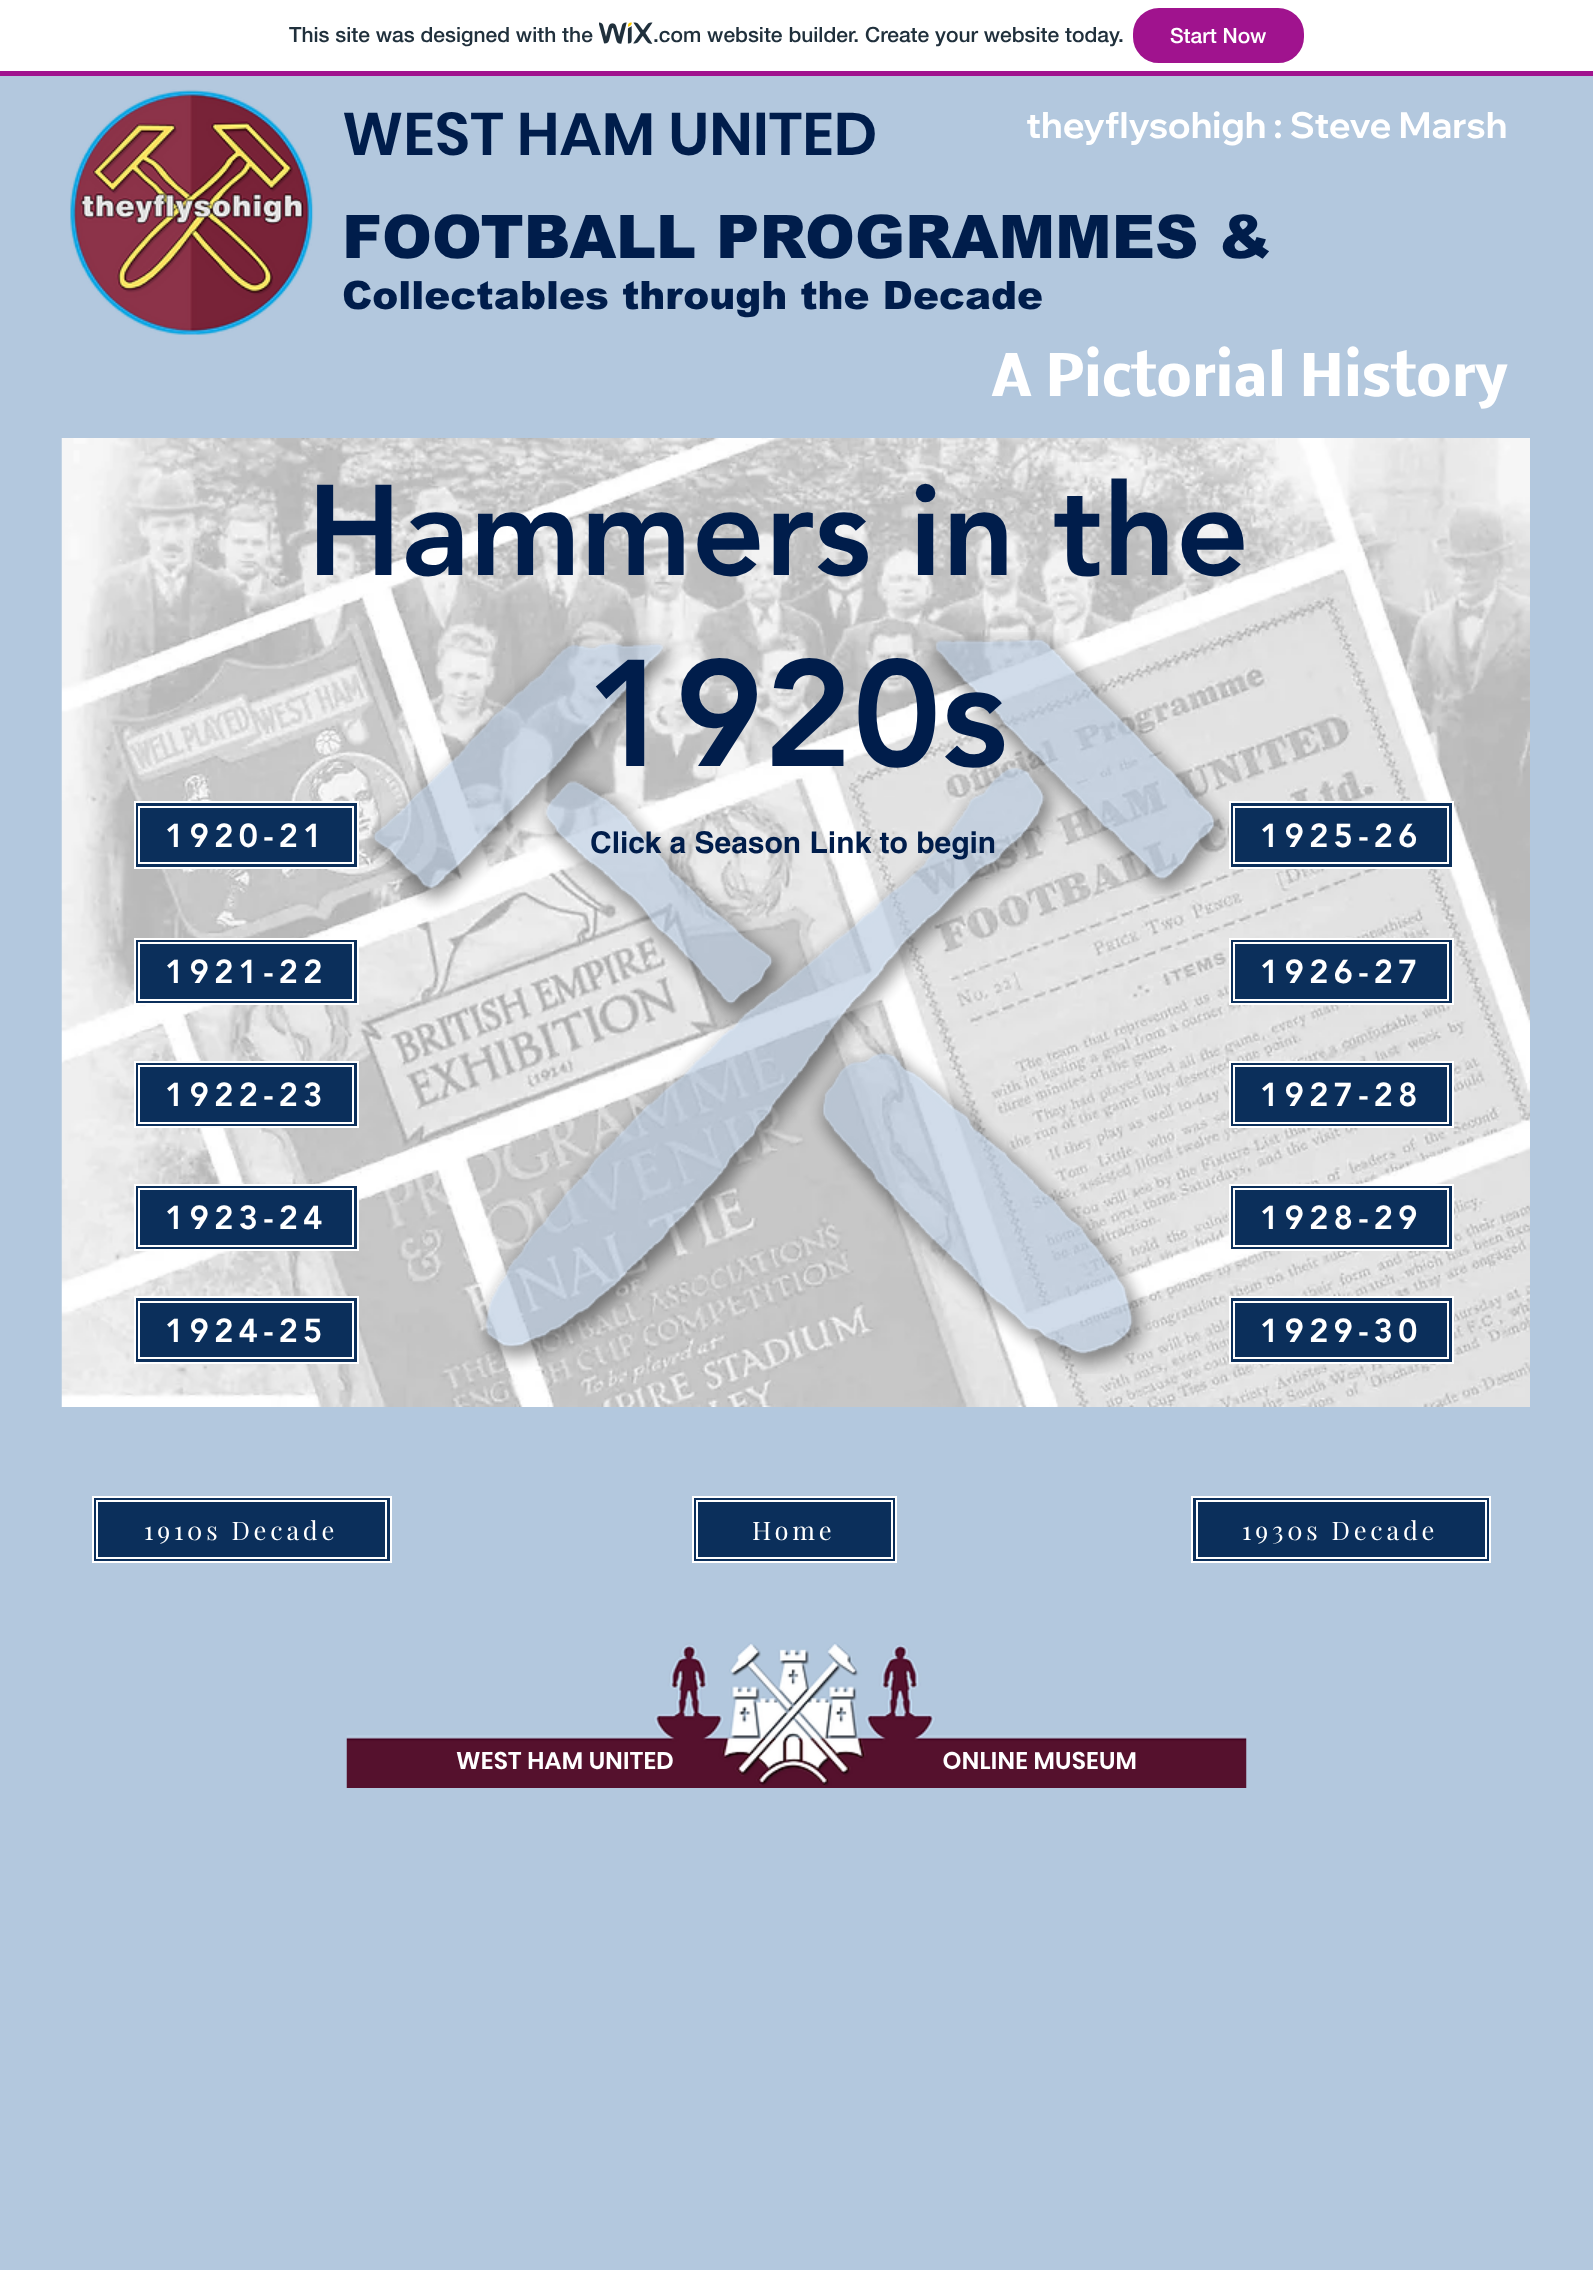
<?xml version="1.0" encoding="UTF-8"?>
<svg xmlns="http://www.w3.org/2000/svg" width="1593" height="2270">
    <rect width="100%" height="100%" fill="#FFFFFF"/>
    <rect x="0" y="71" width="1593" height="5" fill="#A0138E"/>
    <text x="289" y="42" font-family="'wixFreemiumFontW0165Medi'" font-size="21" font-weight="500" fill="#20303C">This site was designed with the</text>
    <image x="599" y="22" width="54" height="22" href="img_01.png"/>
    <text x="653" y="42" font-family="'wixFreemiumFontW0165Medi'" font-size="21" font-weight="500" fill="#20303C">.com website builder. Create your website today.</text>
    <rect x="1134" y="9" width="169" height="53" rx="25" fill="#A0138E" stroke="#A0138E" stroke-width="2"/>
    <text x="1170" y="43" font-family="'wixFreemiumFontW0165Medi'" font-size="21" font-weight="500" fill="#FFFFFF">Start Now</text>
    <rect x="0" y="76" width="1593" height="2194" fill="#B3C8DE"/>
    <image x="70" y="89" width="244" height="246" href="img_02.png"/>
    <text x="342" y="155" font-family="Poppins" font-size="60" font-weight="600" fill="#001D4B">WEST HAM UNITED</text>
    <text x="1026" y="138" font-family="Wix Madefor Display" font-size="36" font-weight="700" fill="#FFFFFF">theyflysohigh : Steve Marsh</text>
    <text x="342" y="258" font-family="arial" font-size="60" font-weight="900" fill="#001D4B">FOOTBALL PROGRAMMES &amp;</text>
    <text x="342" y="309" font-family="arial" font-size="39" font-weight="900" fill="#001D4B">Collectables through the Decade</text>
    <text x="991" y="396" font-family="Nobile" font-size="54" font-weight="700" fill="#FFFFFF">A Pictorial History</text>
    <image x="61" y="438" width="1469" height="969" href="img_03.png"/>
    <text x="307" y="575" font-family="'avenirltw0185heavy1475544'" font-size="127.5" font-weight="900" fill="#001D4B">Hammers in the</text>
    <image x="365" y="632" width="864" height="742" href="img_04.png"/>
    <text x="586" y="766" font-family="'avenirltw0185heavy1475544'" font-size="150" font-weight="900" fill="#001D4B">1920s</text>
    <rect x="135" y="802" width="223" height="66" fill="#0B2F5B" stroke="#FFFFFF" stroke-width="2"/>
    <rect x="139" y="807" width="214" height="56" fill="none" stroke="#FFFFFF" stroke-width="2"/>
    <text x="165" y="847" font-family="'avenirltw0185heavy1475544'" font-size="33" font-weight="900" letter-spacing="5" fill="#FFFFFF">1920-21</text>
    <rect x="1230" y="802" width="223" height="66" fill="#0B2F5B" stroke="#FFFFFF" stroke-width="2"/>
    <rect x="1234" y="807" width="214" height="56" fill="none" stroke="#FFFFFF" stroke-width="2"/>
    <text x="1260" y="847" font-family="'avenirltw0185heavy1475544'" font-size="33" font-weight="900" letter-spacing="5" fill="#FFFFFF">1925-26</text>
    <text x="590" y="853" font-family="helvetica" font-size="30" font-weight="700" fill="#001D4B">Click a Season Link to begin</text>
    <rect x="135" y="939" width="223" height="65" fill="#0B2F5B" stroke="#FFFFFF" stroke-width="2"/>
    <rect x="139" y="943" width="214" height="57" fill="none" stroke="#FFFFFF" stroke-width="2"/>
    <text x="165" y="983" font-family="'avenirltw0185heavy1475544'" font-size="33" font-weight="900" letter-spacing="5" fill="#FFFFFF">1921-22</text>
    <rect x="1230" y="939" width="223" height="65" fill="#0B2F5B" stroke="#FFFFFF" stroke-width="2"/>
    <rect x="1234" y="943" width="214" height="57" fill="none" stroke="#FFFFFF" stroke-width="2"/>
    <text x="1260" y="983" font-family="'avenirltw0185heavy1475544'" font-size="33" font-weight="900" letter-spacing="5" fill="#FFFFFF">1926-27</text>
    <rect x="135" y="1062" width="223" height="65" fill="#0B2F5B" stroke="#FFFFFF" stroke-width="2"/>
    <rect x="139" y="1066" width="214" height="57" fill="none" stroke="#FFFFFF" stroke-width="2"/>
    <text x="165" y="1106" font-family="'avenirltw0185heavy1475544'" font-size="33" font-weight="900" letter-spacing="5" fill="#FFFFFF">1922-23</text>
    <rect x="1230" y="1062" width="223" height="65" fill="#0B2F5B" stroke="#FFFFFF" stroke-width="2"/>
    <rect x="1234" y="1066" width="214" height="57" fill="none" stroke="#FFFFFF" stroke-width="2"/>
    <text x="1260" y="1106" font-family="'avenirltw0185heavy1475544'" font-size="33" font-weight="900" letter-spacing="5" fill="#FFFFFF">1927-28</text>
    <rect x="135" y="1185" width="223" height="65" fill="#0B2F5B" stroke="#FFFFFF" stroke-width="2"/>
    <rect x="139" y="1189" width="214" height="57" fill="none" stroke="#FFFFFF" stroke-width="2"/>
    <text x="165" y="1229" font-family="'avenirltw0185heavy1475544'" font-size="33" font-weight="900" letter-spacing="5" fill="#FFFFFF">1923-24</text>
    <rect x="1230" y="1185" width="223" height="65" fill="#0B2F5B" stroke="#FFFFFF" stroke-width="2"/>
    <rect x="1234" y="1189" width="214" height="57" fill="none" stroke="#FFFFFF" stroke-width="2"/>
    <text x="1260" y="1229" font-family="'avenirltw0185heavy1475544'" font-size="33" font-weight="900" letter-spacing="5" fill="#FFFFFF">1928-29</text>
    <rect x="135" y="1297" width="223" height="66" fill="#0B2F5B" stroke="#FFFFFF" stroke-width="2"/>
    <rect x="139" y="1302" width="214" height="56" fill="none" stroke="#FFFFFF" stroke-width="2"/>
    <text x="165" y="1342" font-family="'avenirltw0185heavy1475544'" font-size="33" font-weight="900" letter-spacing="5" fill="#FFFFFF">1924-25</text>
    <rect x="1230" y="1297" width="223" height="66" fill="#0B2F5B" stroke="#FFFFFF" stroke-width="2"/>
    <rect x="1234" y="1302" width="214" height="56" fill="none" stroke="#FFFFFF" stroke-width="2"/>
    <text x="1260" y="1342" font-family="'avenirltw0185heavy1475544'" font-size="33" font-weight="900" letter-spacing="5" fill="#FFFFFF">1929-30</text>
    <rect x="93" y="1497" width="298" height="65" fill="#0B2F5B" stroke="#FFFFFF" stroke-width="2"/>
    <rect x="97" y="1501" width="289" height="57" fill="none" stroke="#FFFFFF" stroke-width="2"/>
    <text x="144" y="1540" font-family="Playfair Display" font-size="25.5" letter-spacing="3.75" fill="#FFFFFF">1910s Decade</text>
    <rect x="693" y="1497" width="203" height="65" fill="#0B2F5B" stroke="#FFFFFF" stroke-width="2"/>
    <rect x="697" y="1501" width="195" height="57" fill="none" stroke="#FFFFFF" stroke-width="2"/>
    <text x="752" y="1540" font-family="Playfair Display" font-size="25.5" letter-spacing="3.75" fill="#FFFFFF">Home</text>
    <rect x="1192" y="1497" width="298" height="65" fill="#0B2F5B" stroke="#FFFFFF" stroke-width="2"/>
    <rect x="1197" y="1501" width="289" height="57" fill="none" stroke="#FFFFFF" stroke-width="2"/>
    <text x="1242" y="1540" font-family="Playfair Display" font-size="25.5" letter-spacing="3.75" fill="#FFFFFF">1930s Decade</text>
    <image x="346" y="1642" width="901" height="146" href="img_05.png"/>
    <text x="456" y="1769" font-family="Poppins" font-size="24" font-weight="600" letter-spacing="0.25" fill="#FFFFFF" xml:space="preserve">WEST HAM UNITED                                                 ONLINE MUSEUM</text>
</svg>
